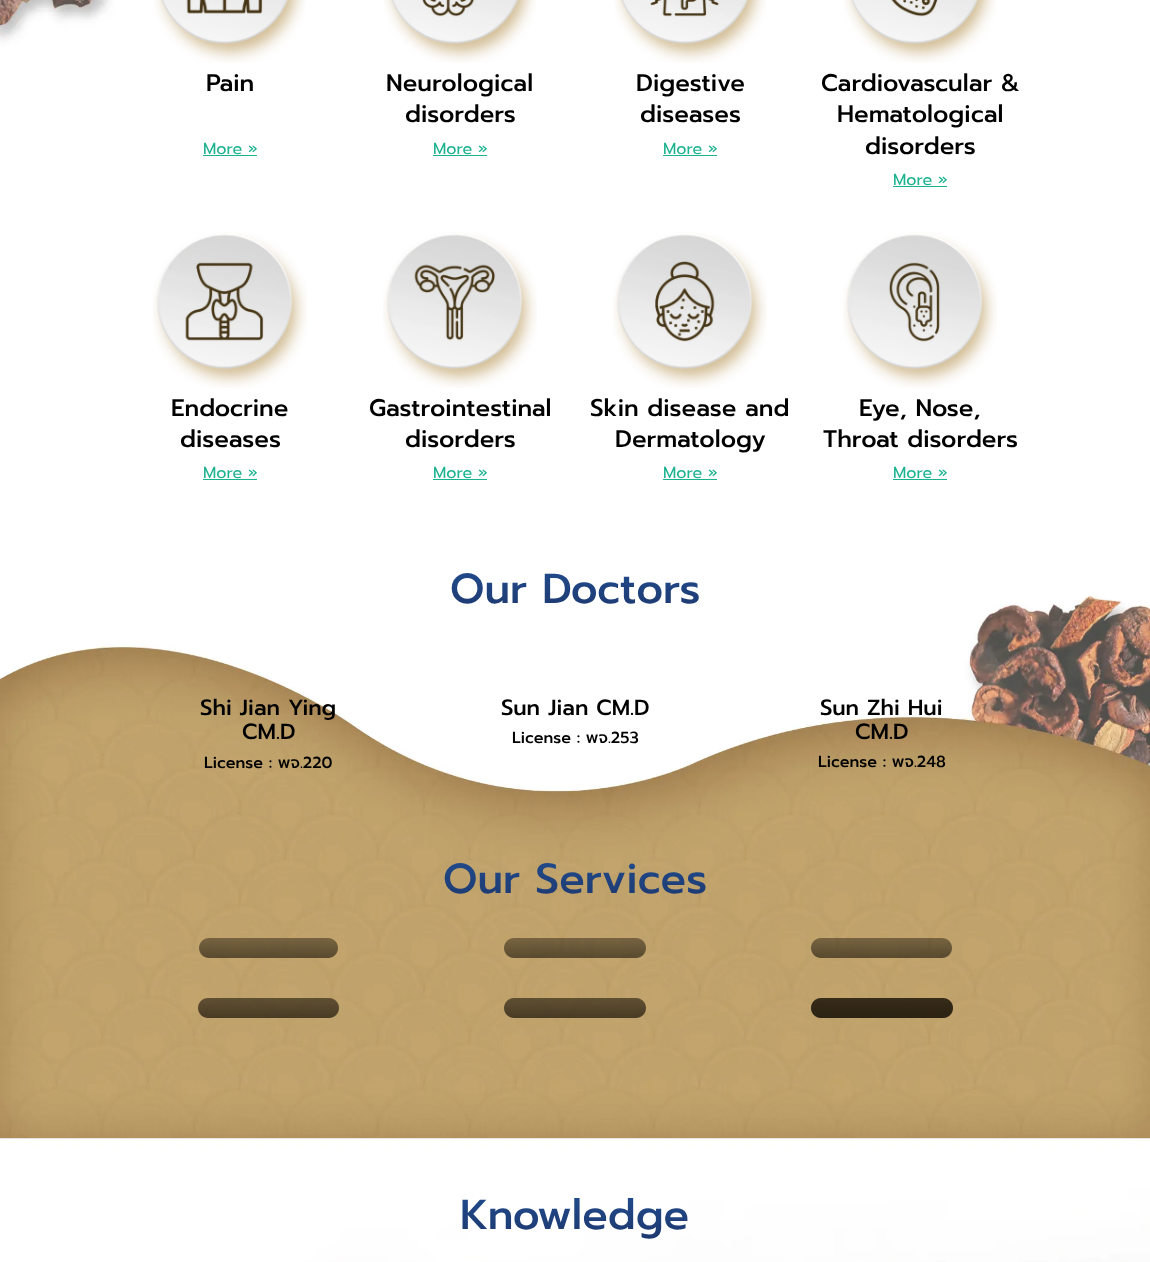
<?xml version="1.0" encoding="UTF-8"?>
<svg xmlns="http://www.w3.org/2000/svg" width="1150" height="1262">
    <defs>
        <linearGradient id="g1" gradientUnits="userSpaceOnUse" x1="575" y1="628" x2="575" y2="522"><stop offset="0" stop-color="#1D3264"/><stop offset="1" stop-color="#235FAC"/></linearGradient>
        <linearGradient id="g2" gradientUnits="userSpaceOnUse" x1="575" y1="918" x2="575" y2="812"><stop offset="0" stop-color="#1D3264"/><stop offset="1" stop-color="#235FAC"/></linearGradient>
        <linearGradient id="g3" gradientUnits="userSpaceOnUse" x1="575" y1="1254" x2="575" y2="1148"><stop offset="0" stop-color="#1D3264"/><stop offset="1" stop-color="#235FAC"/></linearGradient>
    </defs>
    <rect width="100%" height="100%" fill="#FFFFFF"/>
    <image x="0" y="0" width="1150" height="1138" href="img_01.png"/>
    <image x="154" y="0" width="152" height="63" href="img_02.png"/>
    <text x="206" y="91" font-family="Prompt" font-size="24" font-weight="500" fill="#000000">Pain</text>
    <text x="203" y="154" font-family="Prompt" font-size="16" fill="#1CB290">More »</text>
    <rect x="203" y="155" width="54" height="1" fill="#1CB290"/>
    <image x="384" y="0" width="152" height="63" href="img_03.png"/>
    <text x="386" y="91" font-family="Prompt" font-size="24" font-weight="500" fill="#000000">Neurological</text>
    <text x="405" y="122" font-family="Prompt" font-size="24" font-weight="500" fill="#000000">disorders</text>
    <text x="433" y="154" font-family="Prompt" font-size="16" fill="#1CB290">More »</text>
    <rect x="433" y="155" width="54" height="1" fill="#1CB290"/>
    <image x="614" y="0" width="152" height="63" href="img_04.png"/>
    <text x="636" y="91" font-family="Prompt" font-size="24" font-weight="500" fill="#000000">Digestive</text>
    <text x="640" y="122" font-family="Prompt" font-size="24" font-weight="500" fill="#000000">diseases</text>
    <text x="663" y="154" font-family="Prompt" font-size="16" fill="#1CB290">More »</text>
    <rect x="663" y="155" width="54" height="1" fill="#1CB290"/>
    <image x="844" y="0" width="152" height="63" href="img_05.png"/>
    <text x="821" y="91" font-family="Prompt" font-size="24" font-weight="500" fill="#000000">Cardiovascular &amp;</text>
    <text x="837" y="122" font-family="Prompt" font-size="24" font-weight="500" fill="#000000">Hematological</text>
    <text x="865" y="154" font-family="Prompt" font-size="24" font-weight="500" fill="#000000">disorders</text>
    <text x="893" y="185" font-family="Prompt" font-size="16" fill="#1CB290">More »</text>
    <rect x="893" y="186" width="54" height="1" fill="#1CB290"/>
    <image x="153" y="232" width="154" height="156" href="img_06.png"/>
    <text x="171" y="416" font-family="Prompt" font-size="24" font-weight="500" fill="#000000">Endocrine</text>
    <text x="180" y="447" font-family="Prompt" font-size="24" font-weight="500" fill="#000000">diseases</text>
    <text x="203" y="478" font-family="Prompt" font-size="16" fill="#1CB290">More »</text>
    <rect x="203" y="479" width="54" height="1" fill="#1CB290"/>
    <image x="383" y="232" width="154" height="156" href="img_07.png"/>
    <text x="369" y="416" font-family="Prompt" font-size="24" font-weight="500" fill="#000000">Gastrointestinal</text>
    <text x="405" y="447" font-family="Prompt" font-size="24" font-weight="500" fill="#000000">disorders</text>
    <text x="433" y="478" font-family="Prompt" font-size="16" fill="#1CB290">More »</text>
    <rect x="433" y="479" width="54" height="1" fill="#1CB290"/>
    <image x="613" y="232" width="154" height="156" href="img_08.png"/>
    <text x="590" y="416" font-family="Prompt" font-size="24" font-weight="500" fill="#000000">Skin disease and</text>
    <text x="615" y="447" font-family="Prompt" font-size="24" font-weight="500" fill="#000000">Dermatology</text>
    <text x="663" y="478" font-family="Prompt" font-size="16" fill="#1CB290">More »</text>
    <rect x="663" y="479" width="54" height="1" fill="#1CB290"/>
    <image x="843" y="232" width="154" height="156" href="img_09.png"/>
    <text x="859" y="416" font-family="Prompt" font-size="24" font-weight="500" fill="#000000">Eye, Nose,</text>
    <text x="823" y="447" font-family="Prompt" font-size="24" font-weight="500" fill="#000000">Throat disorders</text>
    <text x="893" y="478" font-family="Prompt" font-size="16" fill="#1CB290">More »</text>
    <rect x="893" y="479" width="54" height="1" fill="#1CB290"/>
    <text x="450" y="603" font-family="Prompt" font-size="42" font-weight="500" fill="url(#g1)">Our Doctors</text>
    <text x="200" y="715" font-family="Prompt" font-size="22" font-weight="500" fill="#000000">Shi Jian Ying</text>
    <text x="242" y="739" font-family="Prompt" font-size="22" font-weight="500" fill="#000000">CM.D</text>
    <text x="204" y="768" font-family="Prompt" font-size="16" font-weight="500" fill="#000000">License : พจ.220</text>
    <text x="501" y="715" font-family="Prompt" font-size="22" font-weight="500" fill="#000000">Sun Jian CM.D</text>
    <text x="512" y="743" font-family="Prompt" font-size="16" font-weight="500" fill="#000000">License : พจ.253</text>
    <text x="820" y="715" font-family="Prompt" font-size="22" font-weight="500" fill="#000000">Sun Zhi Hui</text>
    <text x="855" y="739" font-family="Prompt" font-size="22" font-weight="500" fill="#000000">CM.D</text>
    <text x="818" y="767" font-family="Prompt" font-size="16" font-weight="500" fill="#000000">License : พจ.248</text>
    <text x="443" y="893" font-family="Prompt" font-size="42" font-weight="500" fill="url(#g2)">Our Services</text>
    <image x="0" y="1138" width="1150" height="124" href="img_10.png"/>
    <text x="460" y="1229" font-family="Prompt" font-size="42" font-weight="500" fill="url(#g3)">Knowledge</text>
</svg>
